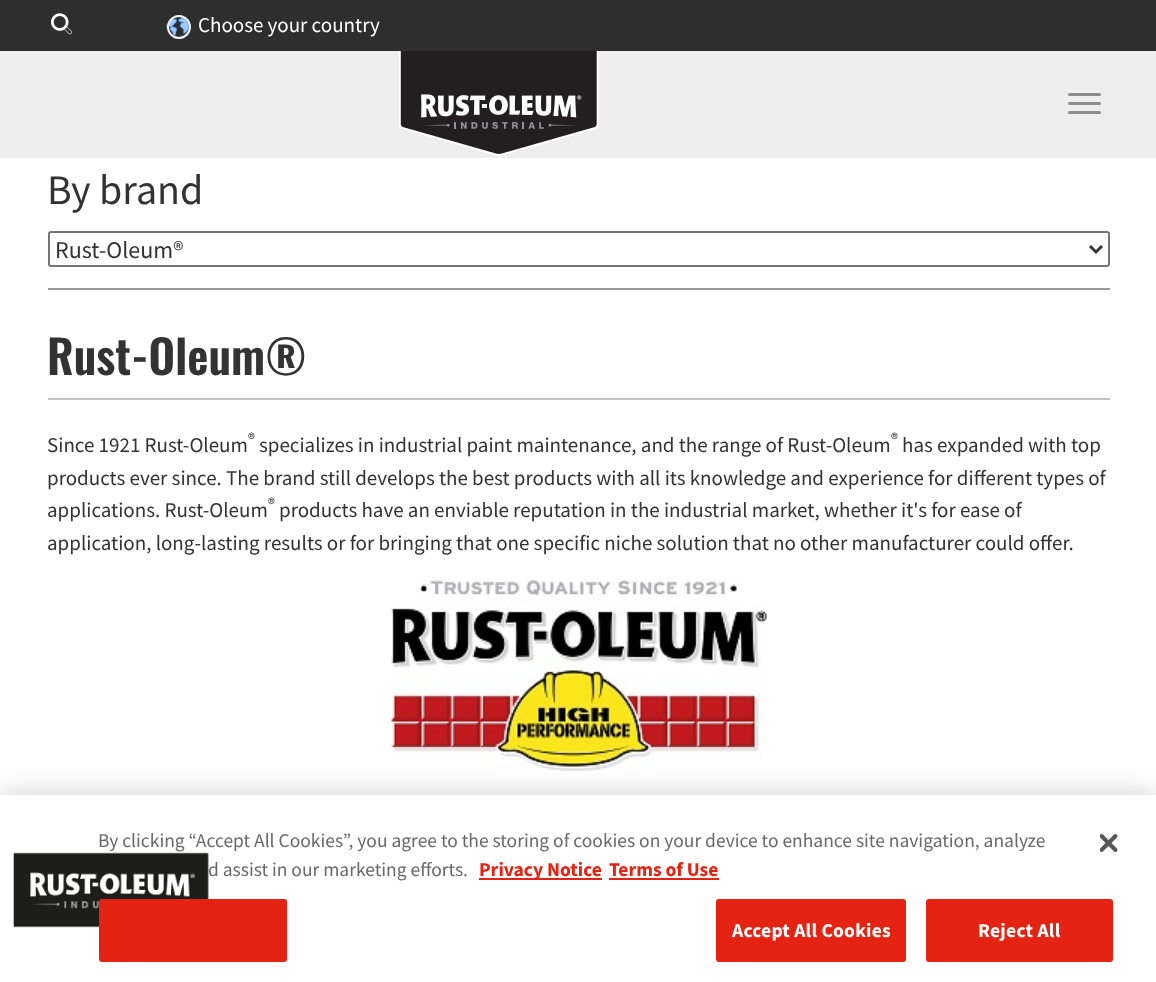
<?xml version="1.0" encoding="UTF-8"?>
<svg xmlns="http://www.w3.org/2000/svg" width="1156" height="982">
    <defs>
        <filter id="blur1" x="-50%" y="-200%" width="200%" height="500%"><feGaussianBlur stdDeviation="13.5"/></filter>
    </defs>
    <rect width="100%" height="100%" fill="#FFFFFF"/>
    <rect x="0" y="51" width="1156" height="107" fill="#EEEEEE"/>
    <rect x="0" y="0" width="1156" height="51" fill="#2E2E2E"/>
    <image x="51" y="13" width="21" height="22" href="img_01.png"/>
    <image x="166" y="15" width="25" height="24" href="img_02.png"/>
    <circle cx="179" cy="27" r="11" fill="none" stroke="#F2F2F2" stroke-width="2"/>
    <text x="198" y="32" font-family="Source Sans Pro" font-size="21" fill="#FFFFFF">Choose your country</text>
    <image x="399" y="51" width="200" height="105" href="img_03.png"/>
    <rect x="1068" y="93" width="33" height="3" rx="1.5" fill="#8C8C8C"/>
    <rect x="1068" y="102" width="33" height="3" rx="1.5" fill="#8C8C8C"/>
    <rect x="1068" y="111" width="33" height="3" rx="1.5" fill="#8C8C8C"/>
    <rect x="48" y="288" width="1062" height="2" fill="#999999"/>
    <text x="47" y="204" font-family="Source Sans Pro" font-size="42" fill="#333333">By brand</text>
    <rect x="49" y="232" width="1060" height="34" rx="2" fill="none" stroke="#767676" stroke-width="2"/>
    <path d="M 1090 246 L 1096 252 L 1102 246" fill="none" stroke="#333333" stroke-width="3"/>
    <text x="55" y="258" font-family="Source Sans Pro" font-size="24" fill="#333333">Rust-Oleum®</text>
    <rect x="48" y="398" width="1062" height="2" fill="#C3C3C3"/>
    <text x="47" y="375" font-family="Oswald" font-size="46.25" font-weight="600" fill="#333333">Rust-Oleum®</text>
    <text x="47" y="452" font-family="Source Sans Pro" font-size="21" fill="#333333">Since 1921 Rust-Oleum</text>
    <text x="248" y="444" font-family="Source Sans Pro" font-size="16" fill="#333333">®</text>
    <text x="259" y="452" font-family="Source Sans Pro" font-size="21" fill="#333333">specializes in industrial paint maintenance, and the range of Rust-Oleum</text>
    <text x="891" y="444" font-family="Source Sans Pro" font-size="16" fill="#333333">®</text>
    <text x="902" y="452" font-family="Source Sans Pro" font-size="21" fill="#333333">has expanded with top</text>
    <text font-family="Source Sans Pro" font-size="21" fill="#333333">
        <tspan x="47" y="485">products ever since. The brand still develops the best products with all its knowledge and experience for different types of</tspan>
        <tspan x="47" y="517">applications. Rust-Oleum</tspan>
    </text>
    <text x="268" y="509" font-family="Source Sans Pro" font-size="16" fill="#333333">®</text>
    <text x="279" y="517" font-family="Source Sans Pro" font-size="21" fill="#333333">products have an enviable reputation in the industrial market, whether it's for ease of</text>
    <text x="47" y="550" font-family="Source Sans Pro" font-size="21" fill="#333333">application, long-lasting results or for bringing that one specific niche solution that no other manufacturer could offer.</text>
    <image x="391" y="580" width="376" height="191" href="img_04.png"/>
    <rect x="0" y="795" width="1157" height="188" fill="#000000" fill-opacity="0.2" filter="url(#blur1)"/>
    <rect x="0" y="795" width="1156" height="187" fill="#FFFFFF"/>
    <text x="98" y="847" font-family="Source Sans Pro" font-size="19.5" fill="#696969">By clicking “Accept All Cookies”, you agree to the storing of cookies on your device to enhance site navigation, analyze</text>
    <text x="208" y="876" font-family="Source Sans Pro" font-size="19.5" fill="#696969">d assist in our marketing efforts.</text>
    <rect x="479" y="878" width="123" height="2" fill="#E42313"/>
    <text x="479" y="876" font-family="Source Sans Pro" font-size="19.5" font-weight="700" fill="#E42313">Privacy Notice</text>
    <text x="609" y="876" font-family="Source Sans Pro" font-size="19.5" font-weight="700" fill="#E42313">Terms of Use</text>
    <rect x="609" y="878" width="110" height="2" fill="#E42313"/>
    <image x="13" y="852" width="196" height="76" href="img_05.png"/>
    <rect x="100" y="900" width="186" height="61" rx="2" fill="#E42313" stroke="#E42313" stroke-width="2"/>
    <rect x="717" y="900" width="188" height="61" rx="2" fill="#E42313" stroke="#E42313" stroke-width="2"/>
    <text x="732" y="937" font-family="Source Sans Pro" font-size="19.5" font-weight="700" letter-spacing="0.25" fill="#FFFFFF">Accept All Cookies</text>
    <rect x="927" y="900" width="185" height="61" rx="2" fill="#E42313" stroke="#E42313" stroke-width="2"/>
    <text x="978" y="937" font-family="Source Sans Pro" font-size="19.5" font-weight="700" letter-spacing="0.25" fill="#FFFFFF">Reject All</text>
    <image x="1100" y="834" width="18" height="18" href="img_06.png"/>
</svg>
